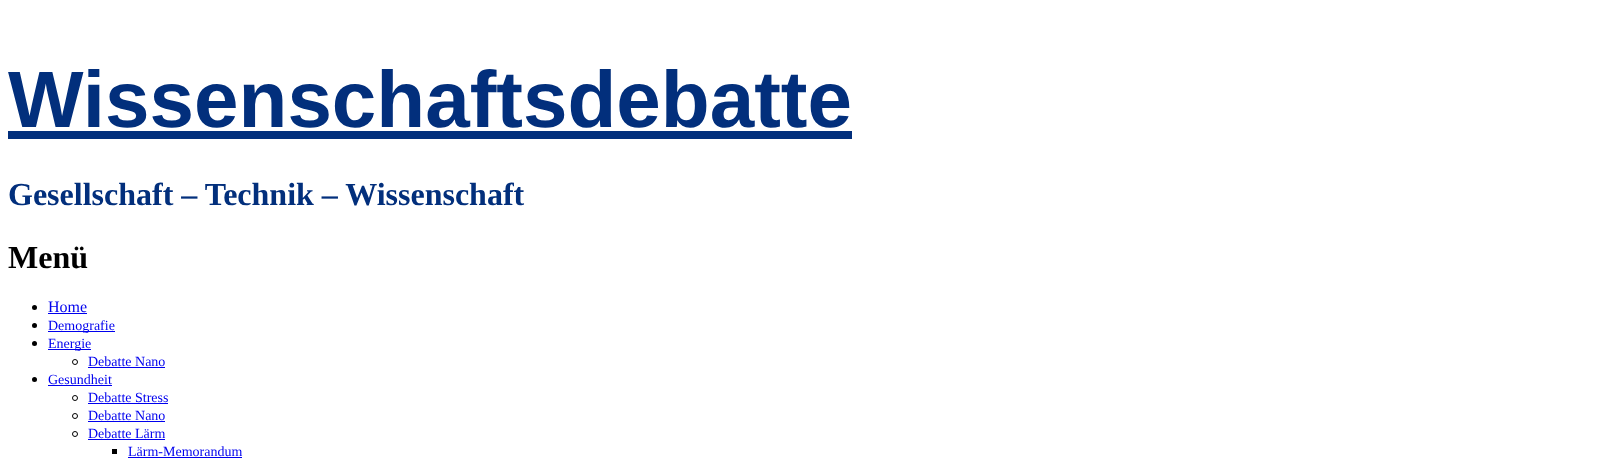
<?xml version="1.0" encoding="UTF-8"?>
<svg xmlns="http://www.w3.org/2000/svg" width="1603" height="460">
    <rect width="100%" height="100%" fill="#FFFFFF"/>
    <text x="8" y="127" font-family="Liberation Sans" font-size="80" font-weight="700" fill="#022F7C">Wissenschaftsdebatte</text>
    <rect x="8" y="131" width="844" height="8" fill="#022F7C"/>
    <text x="8" y="205" font-family="Liberation Serif" font-size="32" font-weight="700" fill="#022F7C">Gesellschaft – Technik – Wissenschaft</text>
    <text x="8" y="268" font-family="Liberation Serif" font-size="32" font-weight="700" fill="#000000">Menü</text>
    <circle cx="34.5" cy="307.5" r="2.5" fill="#000000"/>
    <text x="48" y="312" font-family="Liberation Serif" font-size="16" fill="#0000EE">Home</text>
    <rect x="48" y="313" width="39" height="1" fill="#0000EE"/>
    <circle cx="34.5" cy="325.5" r="2.5" fill="#000000"/>
    <rect x="48" y="331" width="67" height="1" fill="#0000EE"/>
    <text x="48" y="330" font-family="Liberation Serif" font-size="14" fill="#0000EE">Demografie</text>
    <circle cx="34.5" cy="343.5" r="2.5" fill="#000000"/>
    <rect x="48" y="349" width="43" height="1" fill="#0000EE"/>
    <text x="48" y="348" font-family="Liberation Serif" font-size="14" fill="#0000EE">Energie</text>
    <circle cx="75" cy="362" r="2.5" fill="none" stroke="#000000"/>
    <text x="88" y="366" font-family="Liberation Serif" font-size="14" fill="#0000EE">Debatte Nano</text>
    <rect x="88" y="367" width="77" height="1" fill="#0000EE"/>
    <circle cx="34.5" cy="379.5" r="2.5" fill="#000000"/>
    <text x="48" y="384" font-family="Liberation Serif" font-size="14" fill="#0000EE">Gesundheit</text>
    <rect x="48" y="385" width="64" height="1" fill="#0000EE"/>
    <circle cx="75" cy="398" r="2.5" fill="none" stroke="#000000"/>
    <text x="88" y="402" font-family="Liberation Serif" font-size="14" fill="#0000EE">Debatte Stress</text>
    <rect x="88" y="403" width="80" height="1" fill="#0000EE"/>
    <circle cx="75" cy="416" r="2.5" fill="none" stroke="#000000"/>
    <text x="88" y="420" font-family="Liberation Serif" font-size="14" fill="#0000EE">Debatte Nano</text>
    <rect x="88" y="421" width="77" height="1" fill="#0000EE"/>
    <circle cx="75" cy="434" r="2.5" fill="none" stroke="#000000"/>
    <text x="88" y="438" font-family="Liberation Serif" font-size="14" fill="#0000EE">Debatte Lärm</text>
    <rect x="88" y="439" width="77" height="1" fill="#0000EE"/>
    <rect x="112" y="449" width="5" height="5" fill="#000000"/>
    <text x="128" y="456" font-family="Liberation Serif" font-size="14" fill="#0000EE">Lärm-Memorandum</text>
    <rect x="128" y="457" width="114" height="1" fill="#0000EE"/>
</svg>
